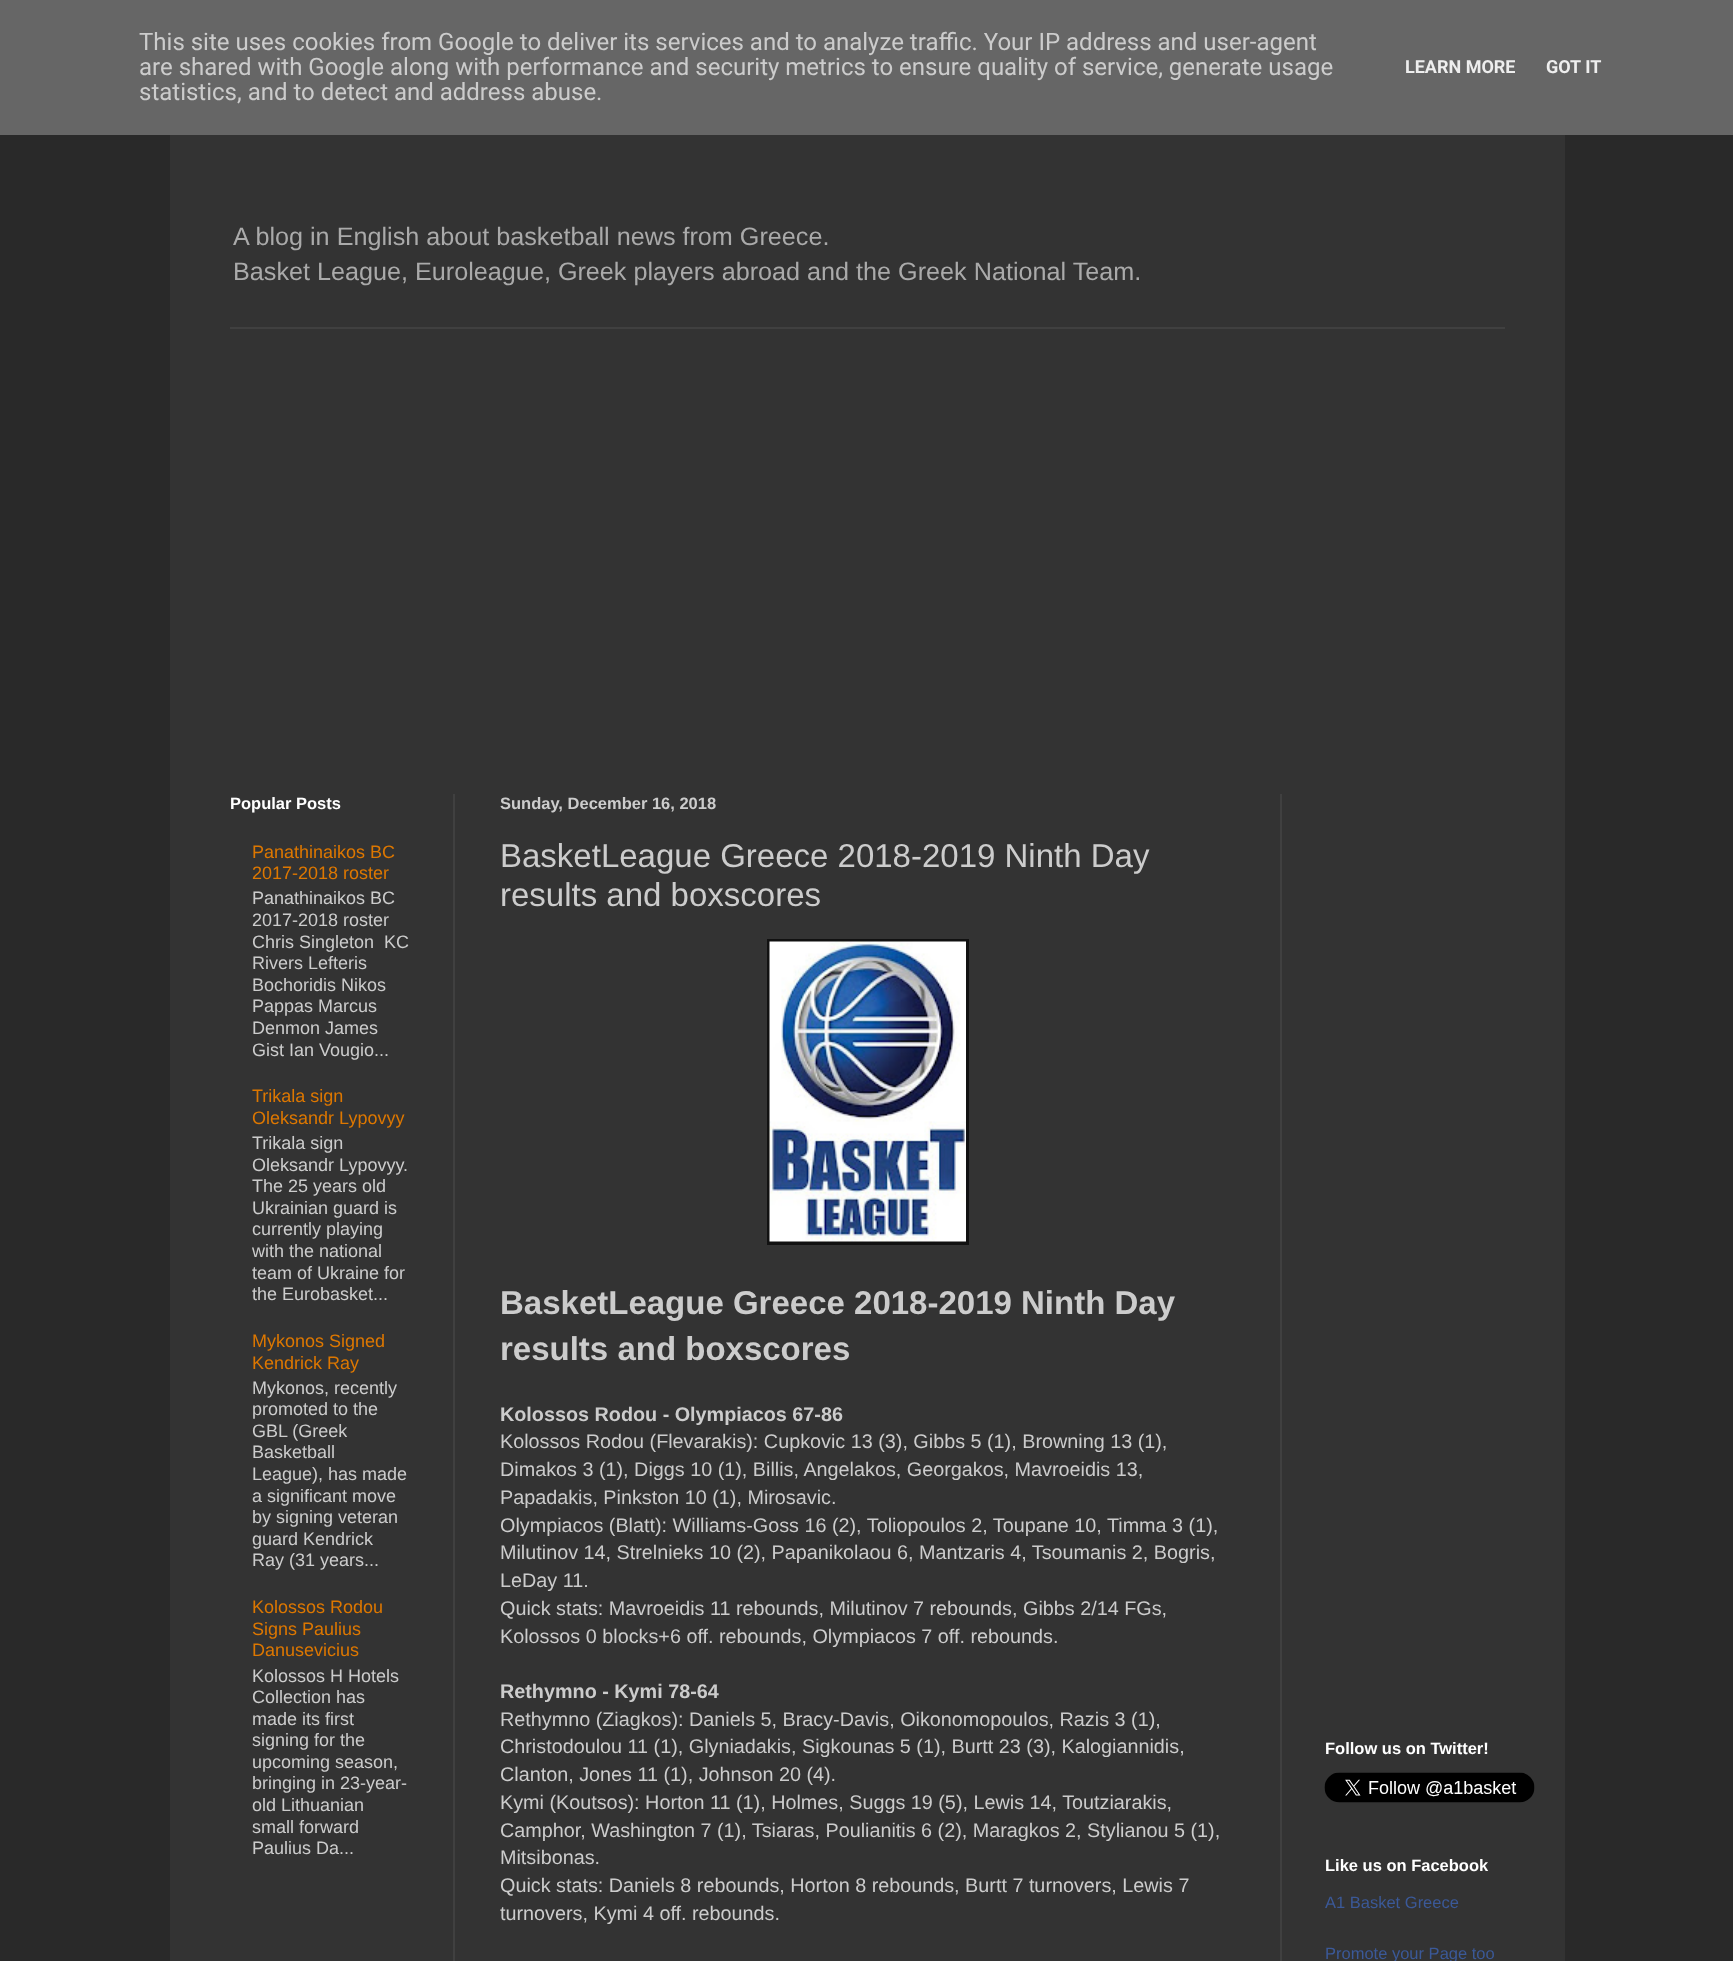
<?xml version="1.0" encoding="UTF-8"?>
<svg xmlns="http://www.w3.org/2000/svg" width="1733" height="1961">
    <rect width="100%" height="100%" fill="#292929"/>
    <rect x="0" y="0" width="1733" height="135" fill="#666666"/>
    <text font-family="Roboto" font-size="24" fill="#CCCCCC">
        <tspan x="139" y="50">This site uses cookies from Google to deliver its services and to analyze traffic. Your IP address and user-agent</tspan>
        <tspan x="139" y="75">are shared with Google along with performance and security metrics to ensure quality of service, generate usage</tspan>
        <tspan x="139" y="100">statistics, and to detect and address abuse.</tspan>
    </text>
    <text x="1405" y="73" font-family="Roboto" font-size="18" font-weight="700" fill="#EEEEEE">LEARN MORE</text>
    <text x="1546" y="73" font-family="Roboto" font-size="18" font-weight="700" fill="#EEEEEE">GOT IT</text>
    <rect x="170" y="135" width="1395" height="1826" fill="#333333"/>
    <text font-family="Liberation Sans" font-size="25.2" fill="#AAAAAA">
        <tspan x="233" y="245">A blog in English about basketball news from Greece.</tspan>
        <tspan x="233" y="280">Basket League, Euroleague, Greek players abroad and the Greek National Team.</tspan>
    </text>
    <rect x="230" y="327" width="1275" height="2" fill="#404040"/>
    <rect x="453" y="794" width="2" height="1167" fill="#404040"/>
    <rect x="1280" y="794" width="2" height="1167" fill="#404040"/>
    <text x="230" y="809" font-family="Liberation Sans" font-size="16.5" font-weight="700" fill="#FFFFFF">Popular Posts</text>
    <text font-family="Liberation Sans" font-size="18" fill="#DD7700">
        <tspan x="252" y="858">Panathinaikos BC</tspan>
        <tspan x="252" y="879">2017-2018 roster</tspan>
    </text>
    <text font-family="Liberation Sans" font-size="18" fill="#CCCCCC">
        <tspan x="252" y="904">Panathinaikos BC</tspan>
        <tspan x="252" y="926">2017-2018 roster</tspan>
        <tspan x="252" y="948">Chris Singleton</tspan>
    </text>
    <text x="384" y="948" font-family="Liberation Sans" font-size="18" fill="#CCCCCC">KC</text>
    <text font-family="Liberation Sans" font-size="18" fill="#CCCCCC">
        <tspan x="252" y="969">Rivers Lefteris</tspan>
        <tspan x="252" y="991">Bochoridis Nikos</tspan>
        <tspan x="252" y="1012">Pappas Marcus</tspan>
        <tspan x="252" y="1034">Denmon James</tspan>
        <tspan x="252" y="1056">Gist Ian Vougio...</tspan>
    </text>
    <text font-family="Liberation Sans" font-size="18" fill="#DD7700">
        <tspan x="252" y="1102">Trikala sign</tspan>
        <tspan x="252" y="1124">Oleksandr Lypovyy</tspan>
    </text>
    <text font-family="Liberation Sans" font-size="18" fill="#CCCCCC">
        <tspan x="252" y="1149">Trikala sign</tspan>
        <tspan x="252" y="1171">Oleksandr Lypovyy.</tspan>
        <tspan x="252" y="1192">The 25 years old</tspan>
        <tspan x="252" y="1214">Ukrainian guard is</tspan>
        <tspan x="252" y="1235">currently playing</tspan>
        <tspan x="252" y="1257">with the national</tspan>
        <tspan x="252" y="1279">team of Ukraine for</tspan>
        <tspan x="252" y="1300">the Eurobasket...</tspan>
    </text>
    <text font-family="Liberation Sans" font-size="18" fill="#DD7700">
        <tspan x="252" y="1347">Mykonos Signed</tspan>
        <tspan x="252" y="1369">Kendrick Ray</tspan>
    </text>
    <text font-family="Liberation Sans" font-size="18" fill="#CCCCCC">
        <tspan x="252" y="1394">Mykonos, recently</tspan>
        <tspan x="252" y="1415">promoted to the</tspan>
        <tspan x="252" y="1437">GBL (Greek</tspan>
        <tspan x="252" y="1458">Basketball</tspan>
        <tspan x="252" y="1480">League), has made</tspan>
        <tspan x="252" y="1502">a significant move</tspan>
        <tspan x="252" y="1523">by signing veteran</tspan>
        <tspan x="252" y="1545">guard Kendrick</tspan>
        <tspan x="252" y="1566">Ray (31 years...</tspan>
    </text>
    <text font-family="Liberation Sans" font-size="18" fill="#DD7700">
        <tspan x="252" y="1613">Kolossos Rodou</tspan>
        <tspan x="252" y="1635">Signs Paulius</tspan>
        <tspan x="252" y="1656">Danusevicius</tspan>
    </text>
    <text font-family="Liberation Sans" font-size="18" fill="#CCCCCC">
        <tspan x="252" y="1682">Kolossos H Hotels</tspan>
        <tspan x="252" y="1703">Collection has</tspan>
        <tspan x="252" y="1725">made its first</tspan>
        <tspan x="252" y="1746">signing for the</tspan>
        <tspan x="252" y="1768">upcoming season,</tspan>
        <tspan x="252" y="1789">bringing in 23-year-</tspan>
        <tspan x="252" y="1811">old Lithuanian</tspan>
        <tspan x="252" y="1833">small forward</tspan>
        <tspan x="252" y="1854">Paulius Da...</tspan>
    </text>
    <text x="500" y="809" font-family="Liberation Sans" font-size="16.5" font-weight="700" fill="#CCCCCC">Sunday, December 16, 2018</text>
    <text font-family="Liberation Sans" font-size="33" fill="#CCCCCC">
        <tspan x="500" y="867">BasketLeague Greece 2018-2019 Ninth Day</tspan>
        <tspan x="500" y="906">results and boxscores</tspan>
    </text>
    <rect x="767" y="939" width="202" height="306" fill="#111111"/>
    <image x="769" y="941" width="197" height="301" href="img_01.png"/>
    <text font-family="Liberation Sans" font-size="33" font-weight="700" fill="#CCCCCC">
        <tspan x="500" y="1314">BasketLeague Greece 2018-2019 Ninth Day</tspan>
        <tspan x="500" y="1360">results and boxscores</tspan>
    </text>
    <text x="500" y="1421" font-family="Liberation Sans" font-size="19.8" font-weight="700" fill="#CCCCCC">Kolossos Rodou - Olympiacos 67-86</text>
    <text font-family="Liberation Sans" font-size="19.8" fill="#CCCCCC">
        <tspan x="500" y="1448">Kolossos Rodou (Flevarakis): Cupkovic 13 (3), Gibbs 5 (1), Browning 13 (1),</tspan>
        <tspan x="500" y="1476">Dimakos 3 (1), Diggs 10 (1), Billis, Angelakos, Georgakos, Mavroeidis 13,</tspan>
        <tspan x="500" y="1504">Papadakis, Pinkston 10 (1), Mirosavic.</tspan>
        <tspan x="500" y="1532">Olympiacos (Blatt): Williams-Goss 16 (2), Toliopoulos 2, Toupane 10, Timma 3 (1),</tspan>
        <tspan x="500" y="1559">Milutinov 14, Strelnieks 10 (2), Papanikolaou 6, Mantzaris 4, Tsoumanis 2, Bogris,</tspan>
        <tspan x="500" y="1587">LeDay 11.</tspan>
        <tspan x="500" y="1615">Quick stats: Mavroeidis 11 rebounds, Milutinov 7 rebounds, Gibbs 2/14 FGs,</tspan>
        <tspan x="500" y="1643">Kolossos 0 blocks+6 off. rebounds, Olympiacos 7 off. rebounds.</tspan>
    </text>
    <text x="500" y="1698" font-family="Liberation Sans" font-size="19.8" font-weight="700" fill="#CCCCCC">Rethymno - Kymi 78-64</text>
    <text font-family="Liberation Sans" font-size="19.8" fill="#CCCCCC">
        <tspan x="500" y="1726">Rethymno (Ziagkos): Daniels 5, Bracy-Davis, Oikonomopoulos, Razis 3 (1),</tspan>
        <tspan x="500" y="1753">Christodoulou 11 (1), Glyniadakis, Sigkounas 5 (1), Burtt 23 (3), Kalogiannidis,</tspan>
        <tspan x="500" y="1781">Clanton, Jones 11 (1), Johnson 20 (4).</tspan>
        <tspan x="500" y="1809">Kymi (Koutsos): Horton 11 (1), Holmes, Suggs 19 (5), Lewis 14, Toutziarakis,</tspan>
        <tspan x="500" y="1837">Camphor, Washington 7 (1), Tsiaras, Poulianitis 6 (2), Maragkos 2, Stylianou 5 (1),</tspan>
        <tspan x="500" y="1864">Mitsibonas.</tspan>
        <tspan x="500" y="1892">Quick stats: Daniels 8 rebounds, Horton 8 rebounds, Burtt 7 turnovers, Lewis 7</tspan>
        <tspan x="500" y="1920">turnovers, Kymi 4 off. rebounds.</tspan>
    </text>
    <text x="1325" y="1754" font-family="Liberation Sans" font-size="16.5" font-weight="700" fill="#FFFFFF">Follow us on Twitter!</text>
    <image x="1324" y="1772" width="211" height="31" href="img_02.png"/>
    <text x="1325" y="1871" font-family="Liberation Sans" font-size="16.5" font-weight="700" fill="#FFFFFF">Like us on Facebook</text>
    <text x="1325" y="1908" font-family="Liberation Sans" font-size="16.5" fill="#3B5998">A1 Basket Greece</text>
    <text x="1325" y="1959" font-family="Liberation Sans" font-size="16.5" fill="#3B5998">Promote your Page too</text>
</svg>
